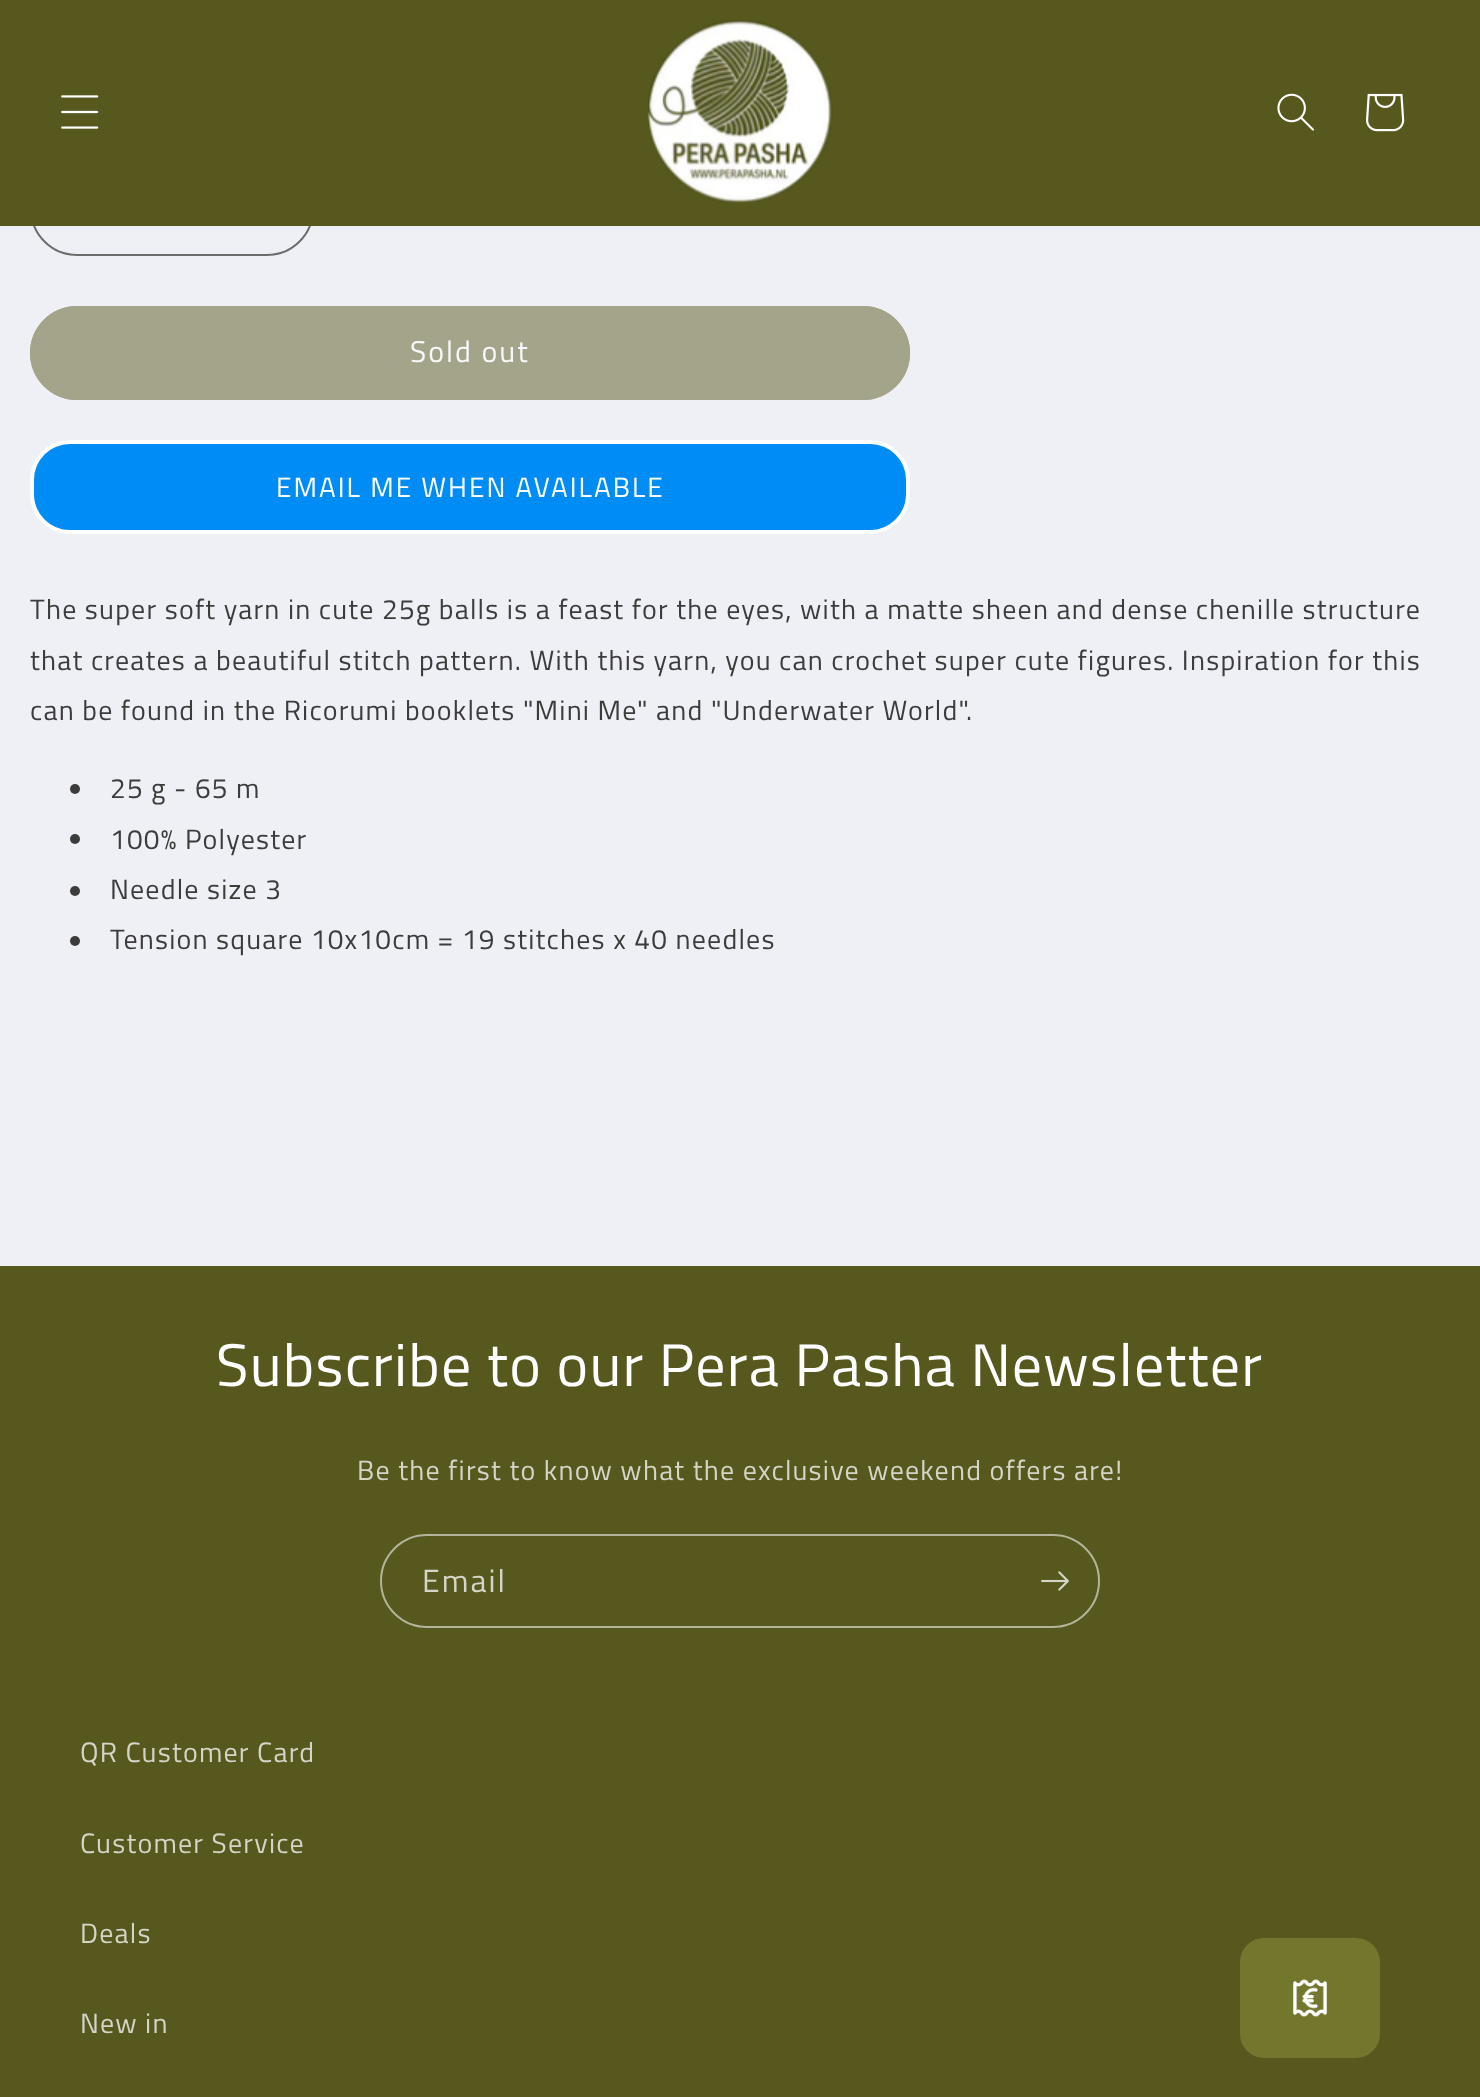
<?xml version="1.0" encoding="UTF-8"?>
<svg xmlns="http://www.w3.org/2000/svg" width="1480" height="2097">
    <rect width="100%" height="100%" fill="#EFF0F5"/>
    <rect x="31" y="163" width="282" height="92" rx="46" fill="none" stroke="#6C6C6E" stroke-width="2"/>
    <rect x="0" y="0" width="1480" height="226" fill="#56581E"/>
    <image x="61" y="95" width="38" height="34" href="img_01.png"/>
    <image x="647" y="20" width="186" height="183" href="img_02.png"/>
    <image x="1277" y="93" width="37" height="38" href="img_03.png"/>
    <image x="1366" y="93" width="39" height="39" href="img_04.png"/>
    <rect x="30" y="306" width="880" height="94" rx="47" fill="#A3A489"/>
    <rect x="31" y="307" width="878" height="92" rx="46" fill="none" stroke="#A3A48A" stroke-width="2"/>
    <text x="410" y="362" font-family="Titillium Web" font-size="30" letter-spacing="2" fill="#F7F8FA">Sold out</text>
    <rect x="32" y="442" width="876" height="90" rx="38" fill="#008CF5" stroke="#FFFFFF" stroke-width="4"/>
    <text x="276" y="497" font-family="Titillium Web" font-size="28" letter-spacing="2" fill="#FFFFFF">EMAIL ME WHEN AVAILABLE</text>
    <text font-family="Titillium Web" font-size="28" letter-spacing="1.2" fill="#3C3C3D">
        <tspan x="30" y="619">The super soft yarn in cute 25g balls is a feast for the eyes, with a matte sheen and dense chenille structure</tspan>
        <tspan x="30" y="670">that creates a beautiful stitch pattern. With this yarn, you can crochet super cute figures. Inspiration for this</tspan>
        <tspan x="30" y="720">can be found in the Ricorumi booklets "Mini Me" and "Underwater World".</tspan>
    </text>
    <circle cx="75" cy="789" r="5" fill="#3C3C3D"/>
    <text x="110" y="798" font-family="Titillium Web" font-size="28" letter-spacing="1.2" fill="#3C3C3D">25 g - 65 m</text>
    <circle cx="75" cy="839" r="5" fill="#3C3C3D"/>
    <text x="110" y="849" font-family="Titillium Web" font-size="28" letter-spacing="1.2" fill="#3C3C3D">100% Polyester</text>
    <circle cx="75" cy="891" r="5" fill="#3C3C3D"/>
    <text x="110" y="899" font-family="Titillium Web" font-size="28" letter-spacing="1.2" fill="#3C3C3D">Needle size 3</text>
    <circle cx="75" cy="941" r="5" fill="#3C3C3D"/>
    <text x="110" y="949" font-family="Titillium Web" font-size="28" letter-spacing="1.2" fill="#3C3C3D">Tension square 10x10cm = 19 stitches x 40 needles</text>
    <rect x="0" y="1266" width="1480" height="831" fill="#56581E"/>
    <text x="216" y="1386" font-family="Titillium Web" font-size="60" letter-spacing="1.2" fill="#FFFFFF">Subscribe to our Pera Pasha Newsletter</text>
    <text x="357" y="1480" font-family="Titillium Web" font-size="28" letter-spacing="1.2" fill="#D5D5C7">Be the first to know what the exclusive weekend offers are!</text>
    <rect x="381" y="1535" width="718" height="92" rx="46" fill="none" stroke="#B3B49A" stroke-width="2"/>
    <text x="422" y="1592" font-family="Titillium Web" font-size="32" letter-spacing="2" fill="#D5D5C7">Email</text>
    <image x="1041" y="1571" width="28" height="20" href="img_05.png"/>
    <text x="80" y="1762" font-family="Titillium Web" font-size="28" letter-spacing="1.2" fill="#D5D5C7">QR Customer Card</text>
    <text x="80" y="1853" font-family="Titillium Web" font-size="28" letter-spacing="1.2" fill="#D5D5C7">Customer Service</text>
    <text x="80" y="1943" font-family="Titillium Web" font-size="28" letter-spacing="1.2" fill="#D5D5C7">Deals</text>
    <text x="80" y="2033" font-family="Titillium Web" font-size="28" letter-spacing="1.2" fill="#D5D5C7">New in</text>
    <rect x="1240" y="1938" width="140" height="120" rx="24" fill="#73762D"/>
    <image x="1293" y="1979" width="34" height="38" href="img_06.png"/>
</svg>
